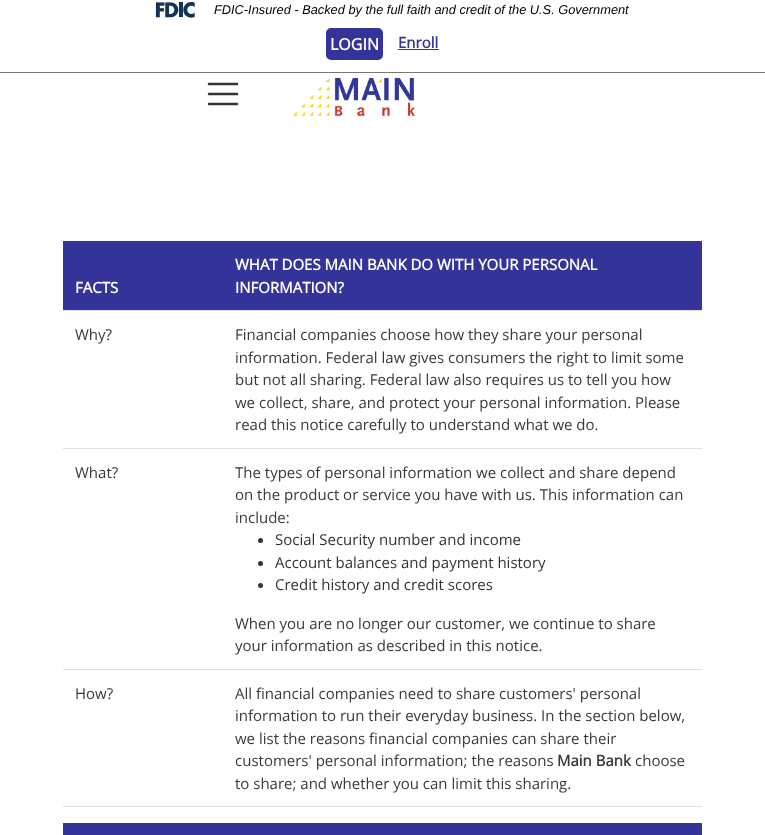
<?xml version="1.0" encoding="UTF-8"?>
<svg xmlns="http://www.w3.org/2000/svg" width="765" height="835">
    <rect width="100%" height="100%" fill="#FFFFFF"/>
    <image x="155" y="2" width="40" height="16" href="img_01.png"/>
    <text x="214" y="14" font-family="Liberation Sans" font-size="12.8" font-style="italic" fill="#000000">FDIC-Insured - Backed by the full faith and credit of the U.S. Government</text>
    <rect x="327" y="29" width="55" height="30" rx="4" fill="#333399" stroke="#333399" stroke-width="2"/>
    <text x="330" y="50" font-family="Open Sans" font-size="16" font-weight="700" fill="#FFFFFF">LOGIN</text>
    <text x="398" y="48" font-family="Open Sans" font-size="15" font-weight="700" fill="#333399">Enroll</text>
    <rect x="398" y="49" width="41" height="1" fill="#333399"/>
    <rect x="0" y="72" width="765" height="1" fill="#777777"/>
    <path d="M 209 84 H 237 M 209 94 H 237 M 209 104 H 237" fill="none" stroke="#333333" stroke-width="2.5" stroke-linecap="round"/>
    <image x="293" y="78" width="122" height="38" href="img_02.png"/>
    <rect x="63" y="241" width="639" height="69" fill="#333399"/>
    <text x="75" y="293" font-family="Open Sans" font-size="15" font-weight="700" fill="#FFFFFF">FACTS</text>
    <text font-family="Open Sans" font-size="15" font-weight="700" fill="#FFFFFF">
        <tspan x="235" y="270">WHAT DOES MAIN BANK DO WITH YOUR PERSONAL</tspan>
        <tspan x="235" y="293">INFORMATION?</tspan>
    </text>
    <text x="75" y="340" font-family="Open Sans" font-size="15" fill="#373A3C">Why?</text>
    <rect x="63" y="310" width="639" height="1" fill="#DEE2E6"/>
    <text font-family="Open Sans" font-size="15" fill="#373A3C">
        <tspan x="235" y="340">Financial companies choose how they share your personal</tspan>
        <tspan x="235" y="363">information. Federal law gives consumers the right to limit some</tspan>
        <tspan x="235" y="385">but not all sharing. Federal law also requires us to tell you how</tspan>
        <tspan x="235" y="408">we collect, share, and protect your personal information. Please</tspan>
        <tspan x="235" y="430">read this notice carefully to understand what we do.</tspan>
    </text>
    <text x="75" y="478" font-family="Open Sans" font-size="15" fill="#373A3C">What?</text>
    <rect x="63" y="448" width="639" height="1" fill="#DEE2E6"/>
    <text font-family="Open Sans" font-size="15" fill="#373A3C">
        <tspan x="235" y="478">The types of personal information we collect and share depend</tspan>
        <tspan x="235" y="500">on the product or service you have with us. This information can</tspan>
        <tspan x="235" y="523">include:</tspan>
    </text>
    <circle cx="260.5" cy="540.5" r="2.5" fill="#333333"/>
    <text x="275" y="545" font-family="Open Sans" font-size="15" fill="#333333">Social Security number and income</text>
    <circle cx="260.5" cy="563.5" r="2.5" fill="#333333"/>
    <text x="275" y="568" font-family="Open Sans" font-size="15" fill="#333333">Account balances and payment history</text>
    <circle cx="260.5" cy="585.5" r="2.5" fill="#333333"/>
    <text x="275" y="590" font-family="Open Sans" font-size="15" fill="#333333">Credit history and credit scores</text>
    <text font-family="Open Sans" font-size="15" fill="#373A3C">
        <tspan x="235" y="629">When you are no longer our customer, we continue to share</tspan>
        <tspan x="235" y="651">your information as described in this notice.</tspan>
    </text>
    <text x="75" y="699" font-family="Open Sans" font-size="15" fill="#373A3C">How?</text>
    <rect x="63" y="669" width="639" height="1" fill="#DEE2E6"/>
    <rect x="63" y="806" width="639" height="1" fill="#DEE2E6"/>
    <text font-family="Open Sans" font-size="15" fill="#373A3C">
        <tspan x="235" y="699">All financial companies need to share customers' personal</tspan>
        <tspan x="235" y="721">information to run their everyday business. In the section below,</tspan>
        <tspan x="235" y="744">we list the reasons financial companies can share their</tspan>
        <tspan x="235" y="766">customers' personal information; the reasons</tspan>
    </text>
    <text x="557" y="766" font-family="Open Sans" font-size="15" font-weight="700" fill="#373A3C">Main Bank</text>
    <text x="635" y="766" font-family="Open Sans" font-size="15" fill="#373A3C">choose</text>
    <text x="235" y="789" font-family="Open Sans" font-size="15" fill="#373A3C">to share; and whether you can limit this sharing.</text>
    <rect x="63" y="823" width="639" height="12" fill="#333399"/>
</svg>
